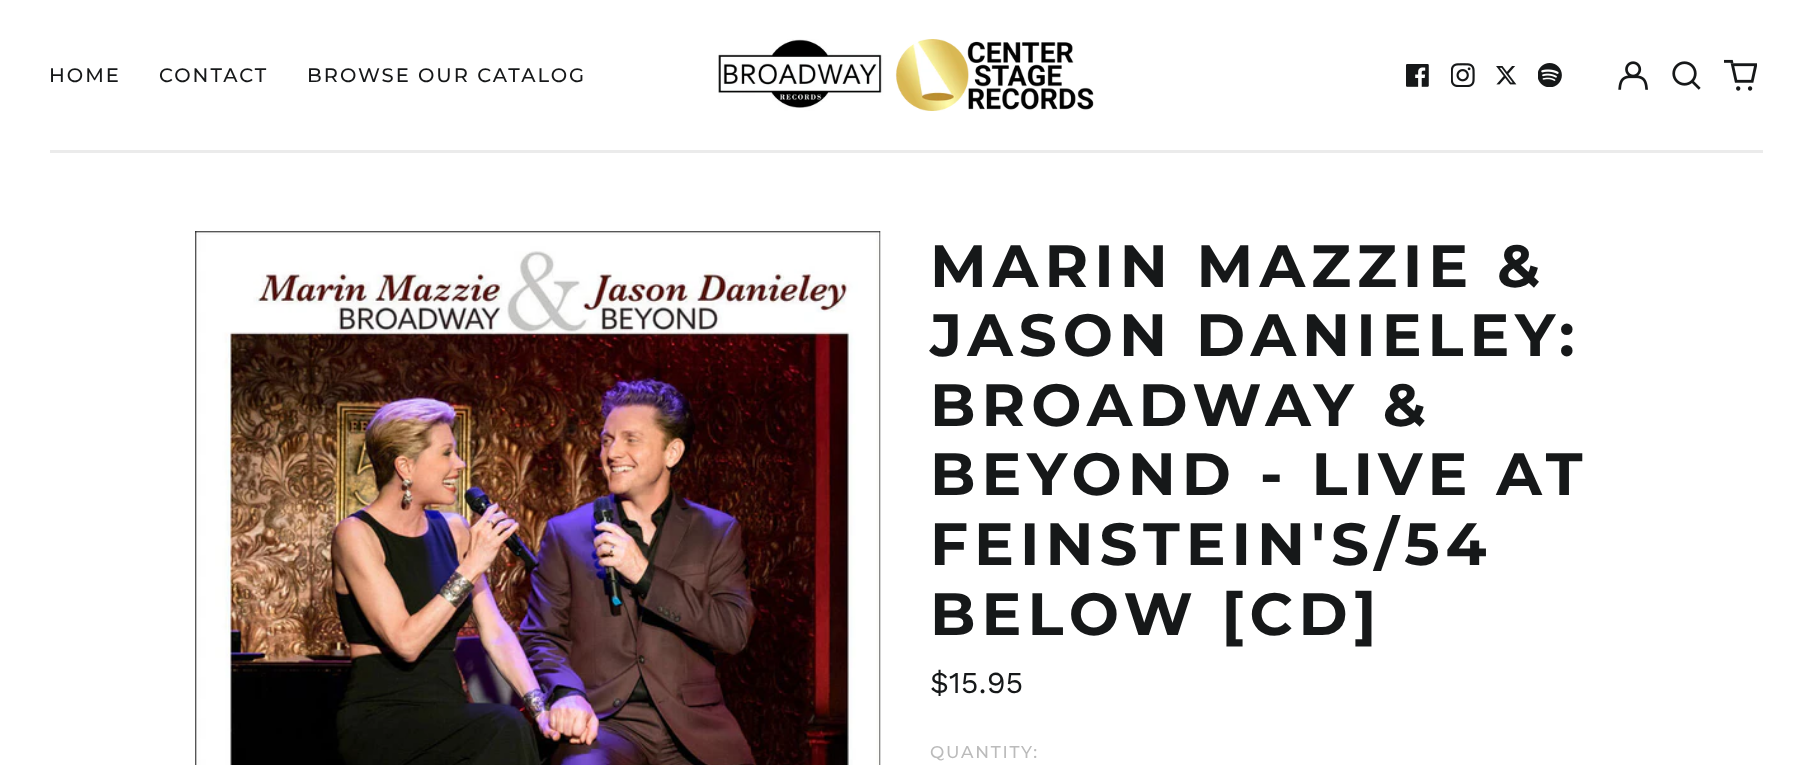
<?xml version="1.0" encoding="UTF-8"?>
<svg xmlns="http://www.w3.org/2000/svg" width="1810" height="765">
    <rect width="100%" height="100%" fill="#FFFFFF"/>
    <rect x="50" y="150" width="1713" height="3" fill="#EBEBEB"/>
    <text x="49" y="82" font-family="Montserrat" font-size="19.5" font-weight="500" letter-spacing="2" fill="#161819">HOME</text>
    <text x="159" y="82" font-family="Montserrat" font-size="19.5" font-weight="500" letter-spacing="2" fill="#161819">CONTACT</text>
    <text x="307" y="82" font-family="Montserrat" font-size="19.5" font-weight="500" letter-spacing="2" fill="#161819">BROWSE OUR CATALOG</text>
    <image x="718" y="39" width="376" height="72" href="img_01.png"/>
    <image x="1406" y="64" width="23" height="23" href="img_02.png"/>
    <image x="1451" y="63" width="24" height="24" href="img_03.png"/>
    <image x="1496" y="66" width="21" height="19" href="img_04.png"/>
    <image x="1538" y="63" width="24" height="24" href="img_05.png"/>
    <image x="1618" y="61" width="30" height="29" href="img_06.png"/>
    <image x="1672" y="61" width="29" height="29" href="img_07.png"/>
    <image x="1724" y="59" width="33" height="32" href="img_08.png"/>
    <image x="195" y="231" width="686" height="534" href="img_09.png"/>
    <text font-family="Montserrat" font-size="59.5" font-weight="700" letter-spacing="6" fill="#161819">
        <tspan x="930" y="287">MARIN MAZZIE &amp;</tspan>
        <tspan x="930" y="356">JASON DANIELEY:</tspan>
        <tspan x="930" y="426">BROADWAY &amp;</tspan>
        <tspan x="930" y="495">BEYOND - LIVE AT</tspan>
        <tspan x="930" y="565">FEINSTEIN'S/54</tspan>
        <tspan x="930" y="635">BELOW [CD]</tspan>
    </text>
    <text x="930" y="693" font-family="Work Sans" font-size="30.5" fill="#161819">$15.95</text>
    <text x="930" y="758" font-family="Montserrat" font-size="17" font-weight="500" letter-spacing="1.75" fill="#BBBBBB">QUANTITY:</text>
</svg>
